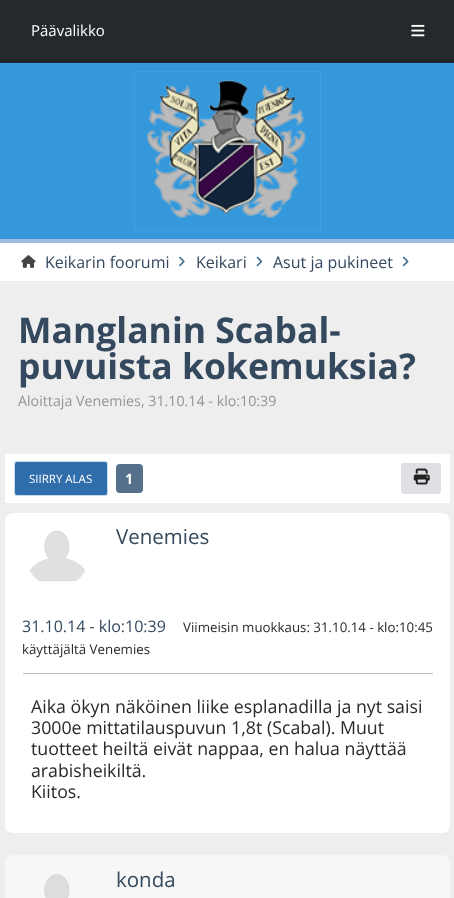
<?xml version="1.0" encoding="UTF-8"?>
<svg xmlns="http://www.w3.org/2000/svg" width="454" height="898">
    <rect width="100%" height="100%" fill="#EEEEEE"/>
    <rect x="0" y="0" width="454" height="59" fill="#26292B"/>
    <rect x="0" y="59" width="454" height="4" fill="#222427"/>
    <text x="31" y="36" font-family="Open Sans" font-size="15" fill="#FFFFFF">Päävalikko</text>
    <image x="411" y="24" width="14" height="13" href="img_01.png"/>
    <rect x="0" y="63" width="454" height="176" fill="#3498DB"/>
    <rect x="0" y="239" width="454" height="4" fill="#9FBFE0"/>
    <image x="133" y="71" width="189" height="161" href="img_02.png"/>
    <rect x="0" y="243" width="454" height="38" fill="#FFFFFF"/>
    <image x="21" y="255" width="15" height="13" href="img_03.png"/>
    <text x="45" y="268" font-family="Open Sans" font-size="16" fill="#34495E">Keikarin foorumi</text>
    <image x="179" y="256" width="6" height="11" href="img_04.png"/>
    <text x="196" y="268" font-family="Open Sans" font-size="16" fill="#34495E">Keikari</text>
    <image x="256" y="256" width="7" height="11" href="img_05.png"/>
    <text x="273" y="268" font-family="Open Sans" font-size="16" fill="#34495E">Asut ja pukineet</text>
    <image x="402" y="256" width="7" height="11" href="img_06.png"/>
    <text font-family="Open Sans" font-size="35.5" font-weight="700" fill="#34495E">
        <tspan x="18" y="343">Manglanin Scabal-</tspan>
        <tspan x="18" y="379">puvuista kokemuksia?</tspan>
    </text>
    <text x="18" y="406" font-family="Open Sans" font-size="14.25" fill="#949494">Aloittaja Venemies, 31.10.14 - klo:10:39</text>
    <rect x="5" y="454" width="445" height="49" fill="#FFFFFF"/>
    <rect x="14.5" y="461.5" width="93" height="34" rx="2.5" fill="#306EAB" stroke="#C7D9EB"/>
    <text x="29" y="483" font-family="Open Sans" font-size="11.5" fill="#FFFFFF">SIIRRY ALAS</text>
    <rect x="116" y="464" width="27" height="29" rx="4" fill="#54708C"/>
    <text x="125" y="484" font-family="Open Sans" font-size="14.25" font-weight="700" fill="#FFFFFF">1</text>
    <rect x="401" y="463" width="40" height="31" rx="3" fill="#DEE0E3"/>
    <image x="413" y="468" width="17" height="17" href="img_07.png"/>
    <path d="M 13 513 H 442 C 446.5 513 450 516.5 450 521 V 601 H 5 V 521 C 5 516.5 8.5 513 13 513 Z" fill="#FFFFFF"/>
    <image x="30" y="530" width="55" height="52" href="img_08.png"/>
    <text x="116" y="544" font-family="Open Sans" font-size="20.5" fill="#34495E">Venemies</text>
    <path d="M 5 601 H 450 V 825 C 450 829.5 446.5 833 442 833 H 13 C 8.5 833 5 829.5 5 825 Z" fill="#FFFFFF"/>
    <text x="22" y="632" font-family="Open Sans" font-size="16" fill="#34495E">31.10.14 - klo:10:39</text>
    <text x="183" y="632" font-family="Open Sans" font-size="13.3" fill="#292929">Viimeisin muokkaus: 31.10.14 - klo:10:45</text>
    <text x="22" y="654" font-family="Open Sans" font-size="13.3" fill="#292929">käyttäjältä Venemies</text>
    <rect x="23" y="673" width="410" height="1" fill="#BFBFBF"/>
    <text font-family="Open Sans" font-size="17.75" fill="#292929">
        <tspan x="31" y="713">Aika ökyn näköinen liike esplanadilla ja nyt saisi</tspan>
        <tspan x="31" y="734">3000e mittatilauspuvun 1,8t (Scabal). Muut</tspan>
        <tspan x="31" y="755">tuotteet heiltä eivät nappaa, en halua näyttää</tspan>
        <tspan x="31" y="777">arabisheikiltä.</tspan>
        <tspan x="31" y="798">Kiitos.</tspan>
    </text>
    <path d="M 13 855 H 442 C 446.5 855 450 858.5 450 863 V 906 H 5 V 863 C 5 858.5 8.5 855 13 855 Z" fill="#F7F7F7"/>
    <image x="44" y="874" width="26" height="24" href="img_09.png"/>
    <text x="116" y="887" font-family="Open Sans" font-size="20.5" fill="#34495E">konda</text>
</svg>
